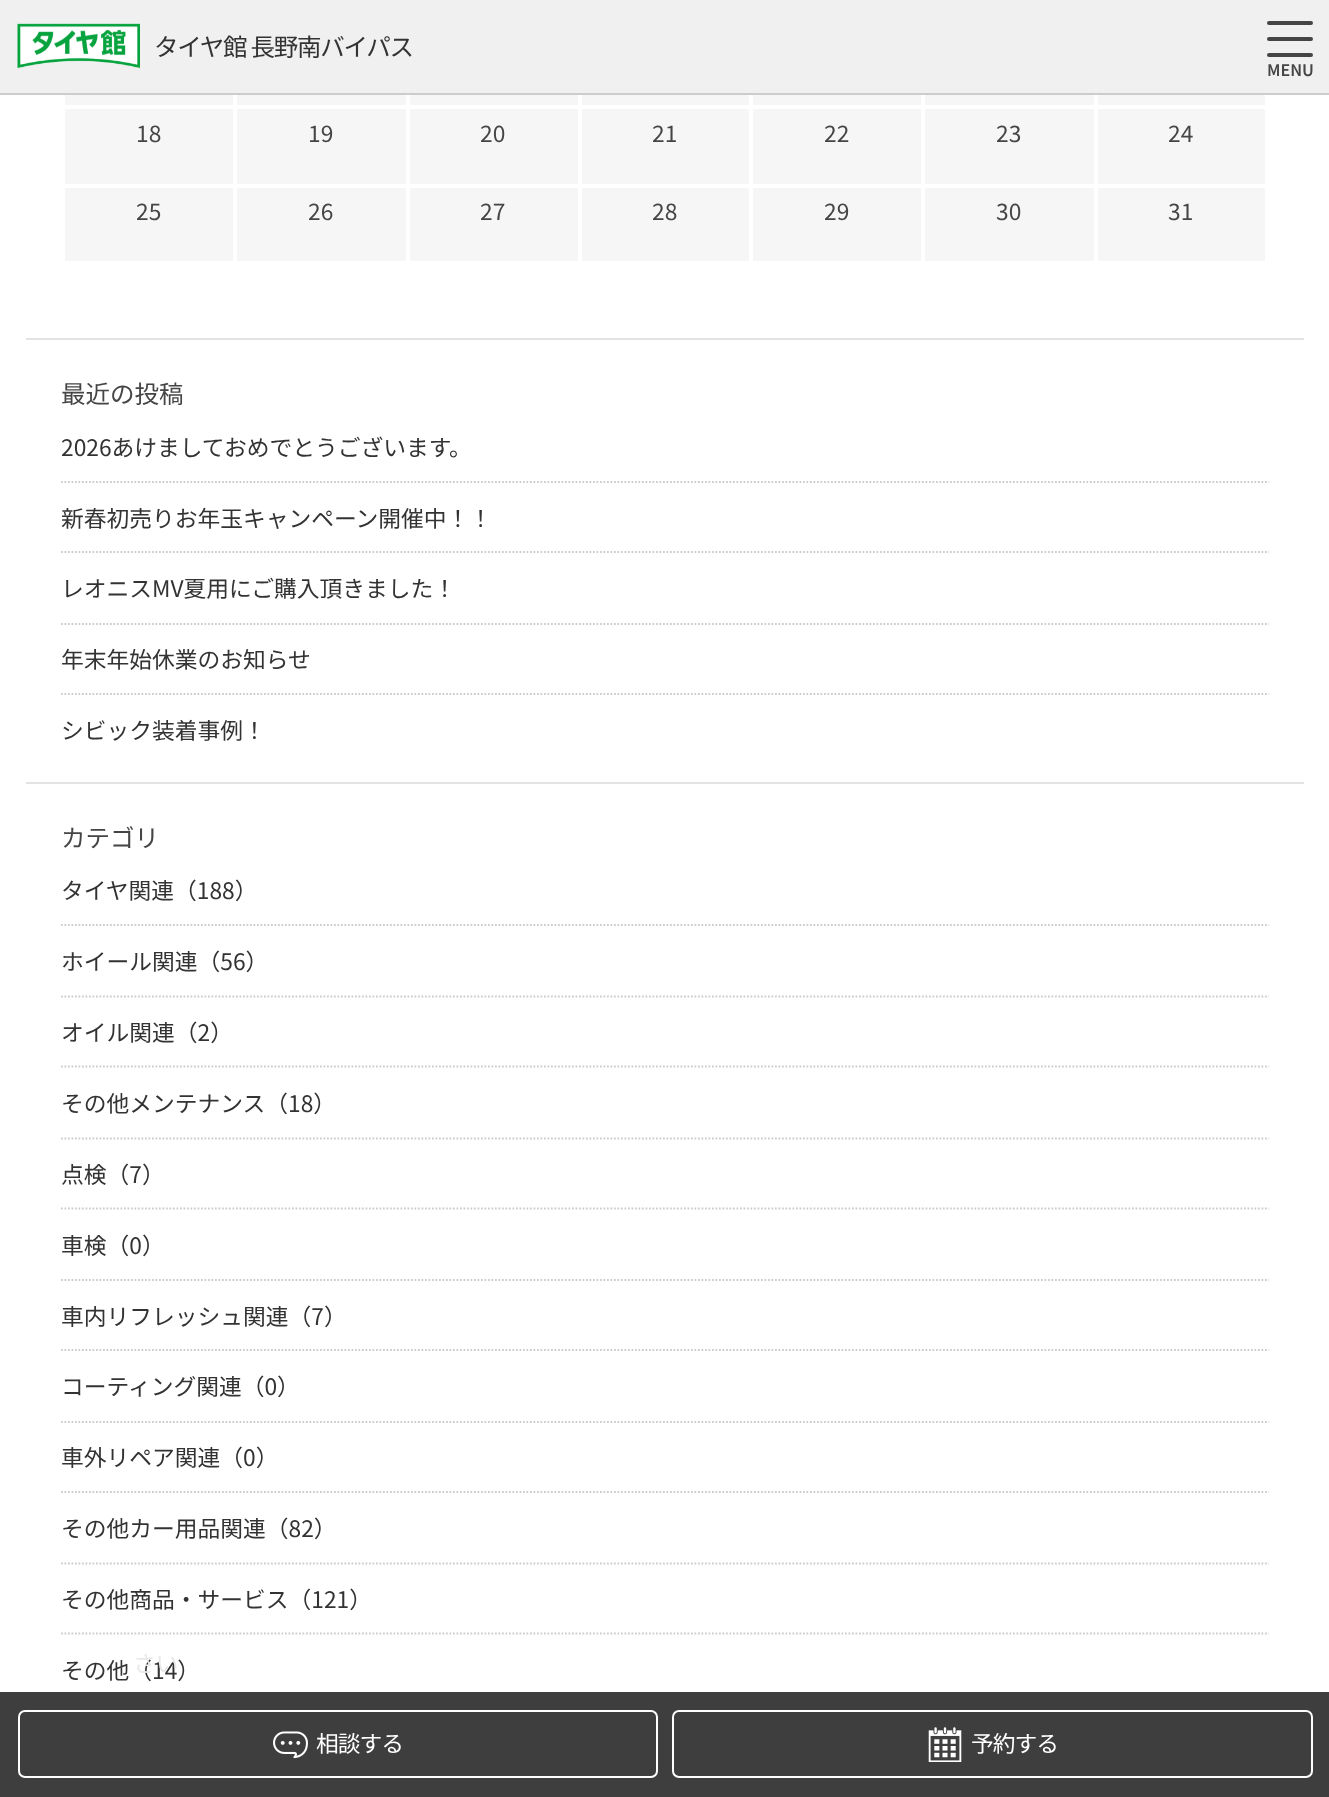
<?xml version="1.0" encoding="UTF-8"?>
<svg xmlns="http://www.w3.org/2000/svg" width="1329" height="1797">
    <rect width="100%" height="100%" fill="#FFFFFF"/>
    <rect x="0" y="0" width="1329" height="93" fill="#F0F0F0"/>
    <rect x="0" y="93" width="1329" height="2" fill="#CCCCCC"/>
    <image x="17" y="23" width="123" height="46" href="img_01.png"/>
    <text x="154" y="56" font-family="Noto Sans JP" font-size="24.5" letter-spacing="-1.25" fill="#333333">タイヤ館 長野南バイパス</text>
    <rect x="1267" y="21" width="46" height="4" rx="2" fill="#454545"/>
    <rect x="1267" y="37" width="46" height="4" rx="2" fill="#454545"/>
    <rect x="1267" y="53" width="46" height="4" rx="2" fill="#454545"/>
    <text x="1267" y="76" font-family="Noto Sans JP" font-size="16" font-weight="600" fill="#454545">MENU</text>
    <rect x="26" y="338" width="1278" height="2" fill="#E3E3E3"/>
    <rect x="65" y="95" width="168" height="10" fill="#F6F6F6"/>
    <rect x="237" y="95" width="169" height="10" fill="#F6F6F6"/>
    <rect x="410" y="95" width="168" height="10" fill="#F6F6F6"/>
    <rect x="582" y="95" width="167" height="10" fill="#F6F6F6"/>
    <rect x="753" y="95" width="168" height="10" fill="#F6F6F6"/>
    <rect x="925" y="95" width="169" height="10" fill="#F6F6F6"/>
    <rect x="1098" y="95" width="167" height="10" fill="#F6F6F6"/>
    <rect x="65" y="109" width="168" height="75" fill="#F6F6F6"/>
    <text x="136" y="142" font-family="Noto Sans JP" font-size="22.75" fill="#454545">18</text>
    <rect x="237" y="109" width="169" height="75" fill="#F6F6F6"/>
    <text x="308" y="142" font-family="Noto Sans JP" font-size="22.75" fill="#454545">19</text>
    <rect x="410" y="109" width="168" height="75" fill="#F6F6F6"/>
    <text x="480" y="142" font-family="Noto Sans JP" font-size="22.75" fill="#454545">20</text>
    <rect x="582" y="109" width="167" height="75" fill="#F6F6F6"/>
    <text x="652" y="142" font-family="Noto Sans JP" font-size="22.75" fill="#454545">21</text>
    <rect x="753" y="109" width="168" height="75" fill="#F6F6F6"/>
    <text x="824" y="142" font-family="Noto Sans JP" font-size="22.75" fill="#454545">22</text>
    <rect x="925" y="109" width="169" height="75" fill="#F6F6F6"/>
    <text x="996" y="142" font-family="Noto Sans JP" font-size="22.75" fill="#454545">23</text>
    <rect x="1098" y="109" width="167" height="75" fill="#F6F6F6"/>
    <text x="1168" y="142" font-family="Noto Sans JP" font-size="22.75" fill="#454545">24</text>
    <rect x="65" y="188" width="168" height="73" fill="#F6F6F6"/>
    <text x="136" y="220" font-family="Noto Sans JP" font-size="22.75" fill="#454545">25</text>
    <rect x="237" y="188" width="169" height="73" fill="#F6F6F6"/>
    <text x="308" y="220" font-family="Noto Sans JP" font-size="22.75" fill="#454545">26</text>
    <rect x="410" y="188" width="168" height="73" fill="#F6F6F6"/>
    <text x="480" y="220" font-family="Noto Sans JP" font-size="22.75" fill="#454545">27</text>
    <rect x="582" y="188" width="167" height="73" fill="#F6F6F6"/>
    <text x="652" y="220" font-family="Noto Sans JP" font-size="22.75" fill="#454545">28</text>
    <rect x="753" y="188" width="168" height="73" fill="#F6F6F6"/>
    <text x="824" y="220" font-family="Noto Sans JP" font-size="22.75" fill="#454545">29</text>
    <rect x="925" y="188" width="169" height="73" fill="#F6F6F6"/>
    <text x="996" y="220" font-family="Noto Sans JP" font-size="22.75" fill="#454545">30</text>
    <rect x="1098" y="188" width="167" height="73" fill="#F6F6F6"/>
    <text x="1168" y="220" font-family="Noto Sans JP" font-size="22.75" fill="#454545">31</text>
    <rect x="26" y="782" width="1278" height="2" fill="#E3E3E3"/>
    <text x="61" y="403" font-family="Noto Sans JP" font-size="24.5" fill="#454545">最近の投稿</text>
    <text x="61" y="456" font-family="Noto Sans JP" font-size="22.75" fill="#333333">2026あけましておめでとうございます。</text>
    <path d="M 61 482 H 1269" fill="none" stroke="#CCCCCC" stroke-width="1.8" stroke-dasharray="1.75 1.75"/>
    <text x="61" y="527" font-family="Noto Sans JP" font-size="22.75" fill="#333333">新春初売りお年玉キャンペーン開催中！！</text>
    <path d="M 61 552 H 1269" fill="none" stroke="#CCCCCC" stroke-width="1.8" stroke-dasharray="1.75 1.75"/>
    <text x="61" y="597" font-family="Noto Sans JP" font-size="22.75" fill="#333333">レオニスMV夏用にご購入頂きました！</text>
    <path d="M 61 624 H 1269" fill="none" stroke="#CCCCCC" stroke-width="1.8" stroke-dasharray="1.75 1.75"/>
    <text x="61" y="668" font-family="Noto Sans JP" font-size="22.75" fill="#333333">年末年始休業のお知らせ</text>
    <path d="M 61 694 H 1269" fill="none" stroke="#CCCCCC" stroke-width="1.8" stroke-dasharray="1.75 1.75"/>
    <text x="61" y="739" font-family="Noto Sans JP" font-size="22.75" fill="#333333">シビック装着事例！</text>
    <text x="61" y="847" font-family="Noto Sans JP" font-size="24.5" fill="#454545">カテゴリ</text>
    <text x="61" y="899" font-family="Noto Sans JP" font-size="22.75" fill="#333333">タイヤ関連（188）</text>
    <path d="M 61 925 H 1269" fill="none" stroke="#CCCCCC" stroke-width="1.8" stroke-dasharray="1.75 1.75"/>
    <text x="61" y="970" font-family="Noto Sans JP" font-size="22.75" fill="#333333">ホイール関連（56）</text>
    <path d="M 61 996.5 H 1269" fill="none" stroke="#CCCCCC" stroke-width="1.8" stroke-dasharray="1.75 1.75"/>
    <text x="61" y="1041" font-family="Noto Sans JP" font-size="22.75" fill="#333333">オイル関連（2）</text>
    <path d="M 61 1066.5 H 1269" fill="none" stroke="#CCCCCC" stroke-width="1.8" stroke-dasharray="1.75 1.75"/>
    <text x="61" y="1112" font-family="Noto Sans JP" font-size="22.75" fill="#333333">その他メンテナンス（18）</text>
    <path d="M 61 1138.5 H 1269" fill="none" stroke="#CCCCCC" stroke-width="1.8" stroke-dasharray="1.75 1.75"/>
    <text x="61" y="1183" font-family="Noto Sans JP" font-size="22.75" fill="#333333">点検（7）</text>
    <path d="M 61 1208.5 H 1269" fill="none" stroke="#CCCCCC" stroke-width="1.8" stroke-dasharray="1.75 1.75"/>
    <text x="61" y="1254" font-family="Noto Sans JP" font-size="22.75" fill="#333333">車検（0）</text>
    <path d="M 61 1280 H 1269" fill="none" stroke="#CCCCCC" stroke-width="1.8" stroke-dasharray="1.75 1.75"/>
    <text x="61" y="1325" font-family="Noto Sans JP" font-size="22.75" fill="#333333">車内リフレッシュ関連（7）</text>
    <path d="M 61 1350 H 1269" fill="none" stroke="#CCCCCC" stroke-width="1.8" stroke-dasharray="1.75 1.75"/>
    <text x="61" y="1395" font-family="Noto Sans JP" font-size="22.75" fill="#333333">コーティング関連（0）</text>
    <path d="M 61 1422 H 1269" fill="none" stroke="#CCCCCC" stroke-width="1.8" stroke-dasharray="1.75 1.75"/>
    <text x="61" y="1466" font-family="Noto Sans JP" font-size="22.75" fill="#333333">車外リペア関連（0）</text>
    <path d="M 61 1492 H 1269" fill="none" stroke="#CCCCCC" stroke-width="1.8" stroke-dasharray="1.75 1.75"/>
    <text x="61" y="1537" font-family="Noto Sans JP" font-size="22.75" fill="#333333">その他カー用品関連（82）</text>
    <path d="M 61 1563.5 H 1269" fill="none" stroke="#CCCCCC" stroke-width="1.8" stroke-dasharray="1.75 1.75"/>
    <text x="61" y="1608" font-family="Noto Sans JP" font-size="22.75" fill="#333333">その他商品・サービス（121）</text>
    <path d="M 61 1633.5 H 1269" fill="none" stroke="#CCCCCC" stroke-width="1.8" stroke-dasharray="1.75 1.75"/>
    <text x="61" y="1679" font-family="Noto Sans JP" font-size="22.75" fill="#333333">その他（14）</text>
    <text x="133" y="1672" font-family="Noto Sans JP" font-size="22.75" fill="#E9E9E9">さい</text>
    <rect x="0" y="1692" width="1329" height="105" fill="#3E3E3E"/>
    <rect x="19" y="1711" width="638" height="66" rx="6" fill="none" stroke="#FFFFFF" stroke-width="2"/>
    <image x="273" y="1731" width="35" height="28" href="img_02.png"/>
    <text x="316" y="1752" font-family="Noto Sans JP" font-size="22.75" letter-spacing="-1" fill="#FFFFFF">相談する</text>
    <rect x="673" y="1711" width="639" height="66" rx="6" fill="none" stroke="#FFFFFF" stroke-width="2"/>
    <image x="928" y="1727" width="34" height="35" href="img_03.png"/>
    <text x="971" y="1752" font-family="Noto Sans JP" font-size="22.75" letter-spacing="-1" fill="#FFFFFF">予約する</text>
</svg>
